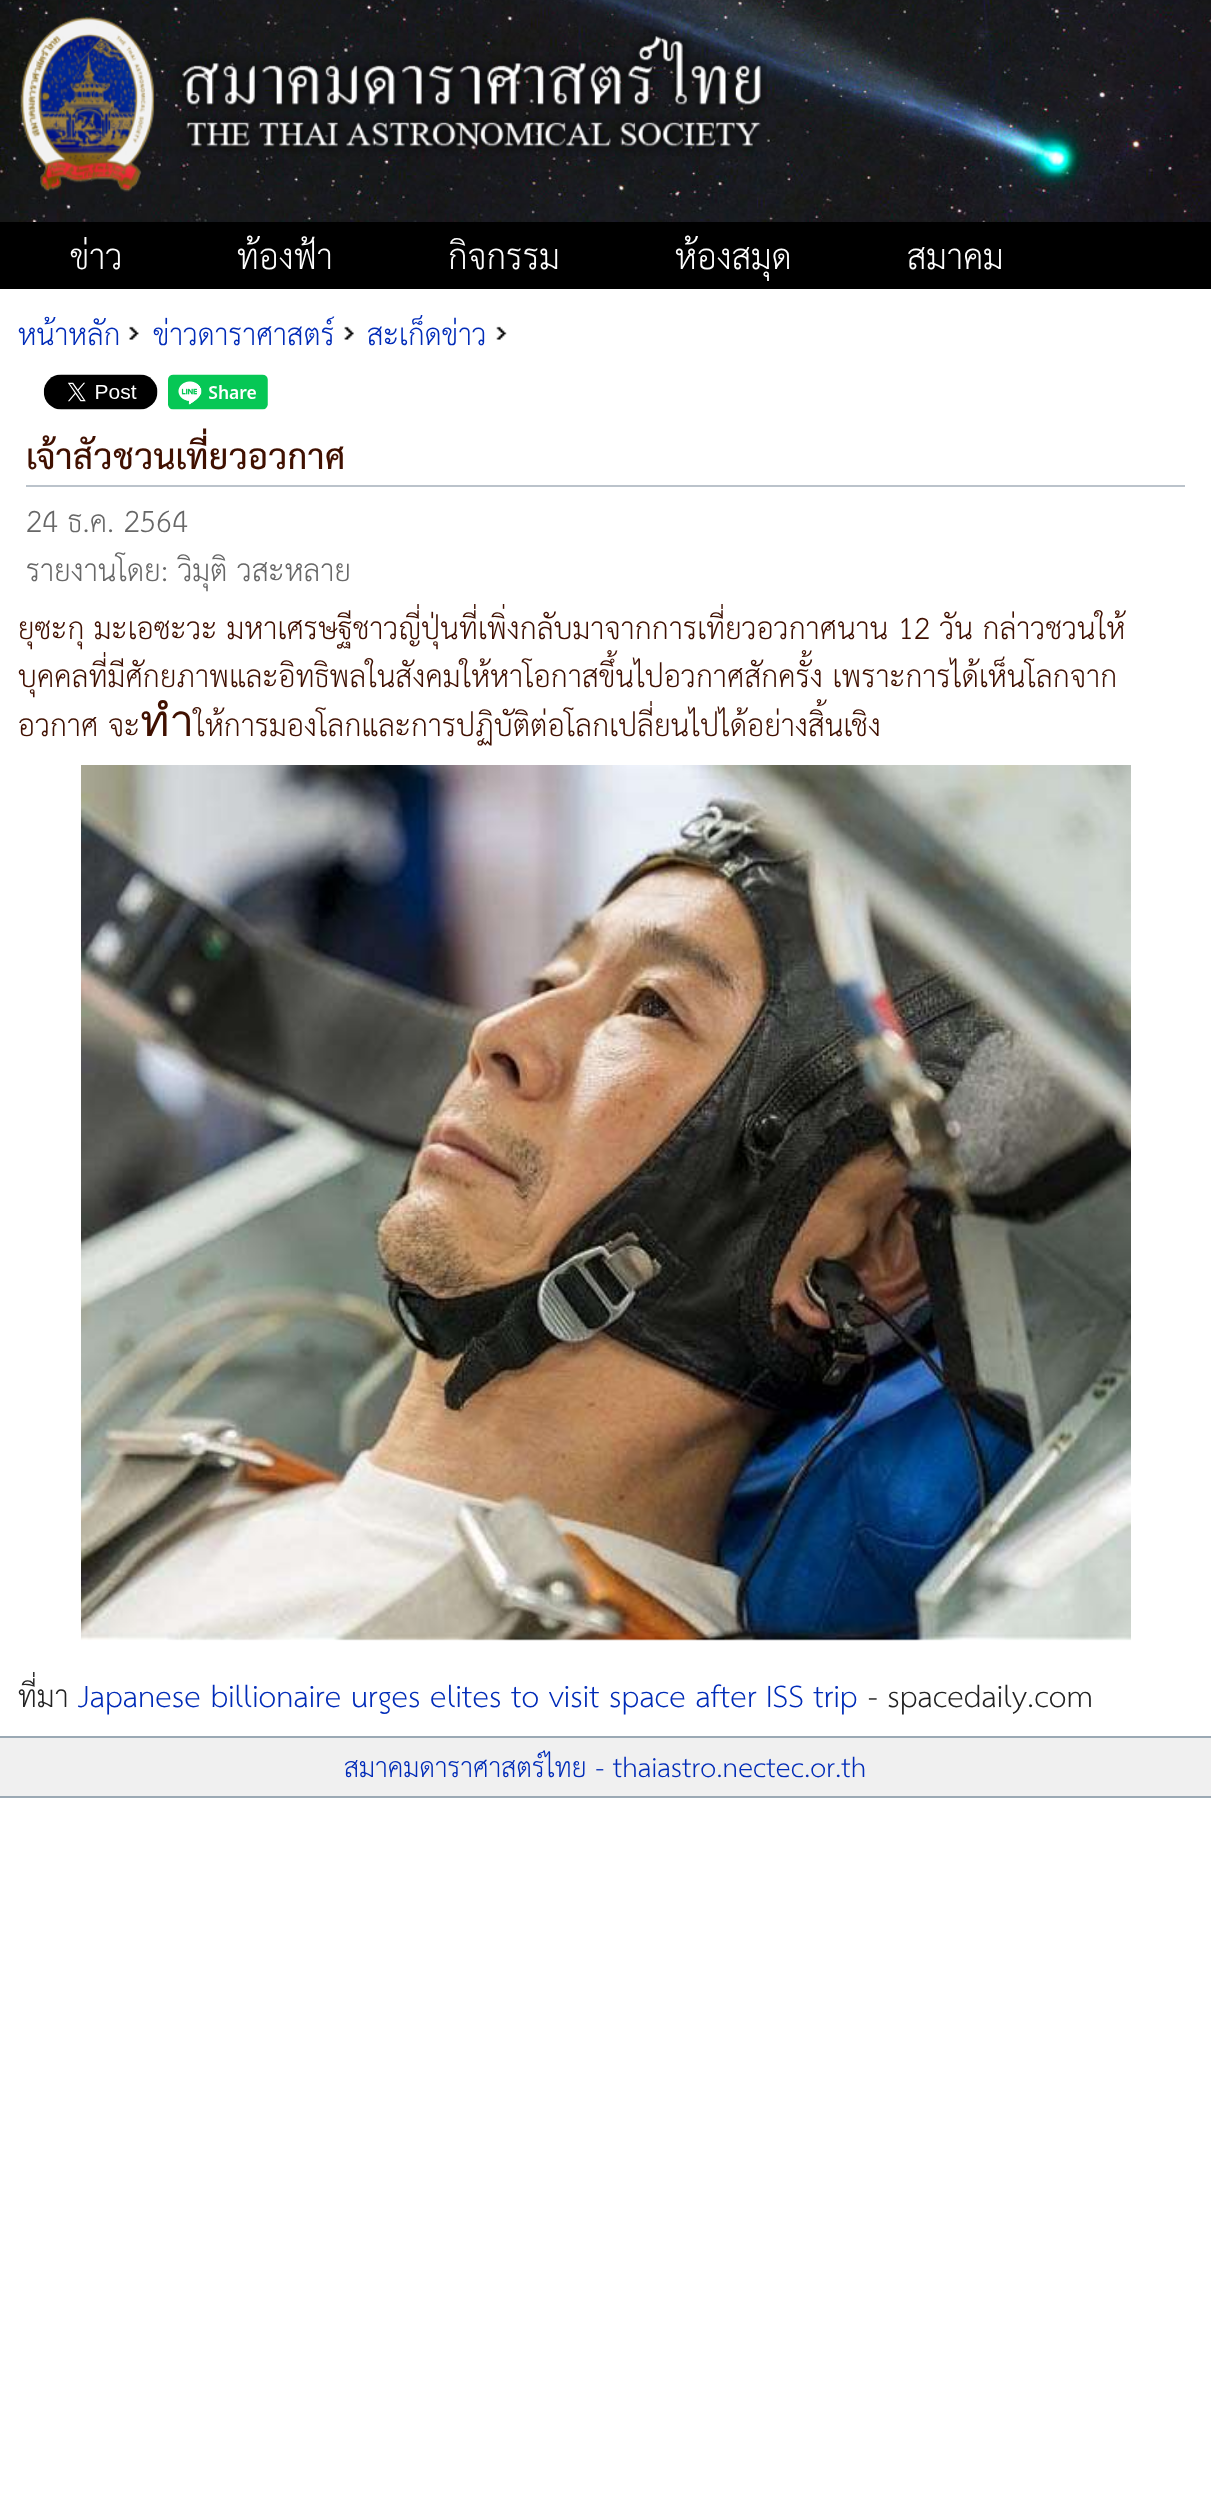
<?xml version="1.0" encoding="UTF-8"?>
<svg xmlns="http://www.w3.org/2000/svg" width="1211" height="2519">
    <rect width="100%" height="100%" fill="#FFFFFF"/>
    <image x="0" y="0" width="1211" height="222" href="img_01.png"/>
    <image x="20" y="16" width="747" height="176" href="img_02.png"/>
    <rect x="0" y="222" width="1211" height="67" fill="#000000"/>
    <text x="70" y="269" font-family="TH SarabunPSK" font-size="51.25" fill="#FFFFFF">ข่าว</text>
    <text x="237" y="269" font-family="TH SarabunPSK" font-size="51.25" fill="#FFFFFF">ท้องฟ้า</text>
    <text x="448" y="269" font-family="TH SarabunPSK" font-size="51.25" fill="#FFFFFF">กิจกรรม</text>
    <text x="675" y="269" font-family="TH SarabunPSK" font-size="51.25" fill="#FFFFFF">ห้องสมุด</text>
    <text x="907" y="269" font-family="TH SarabunPSK" font-size="51.25" fill="#FFFFFF">สมาคม</text>
    <text x="18" y="345" font-family="TH SarabunPSK" font-size="43.5" fill="#002BB8">หน้าหลัก</text>
    <image x="129" y="326" width="10" height="14" href="img_03.png"/>
    <text x="153" y="345" font-family="TH SarabunPSK" font-size="43.5" fill="#002BB8">ข่าวดาราศาสตร์</text>
    <image x="344" y="326" width="10" height="14" href="img_04.png"/>
    <text x="367" y="345" font-family="TH SarabunPSK" font-size="43.5" fill="#002BB8">สะเก็ดข่าว</text>
    <image x="496" y="326" width="11" height="14" href="img_05.png"/>
    <image x="43" y="374" width="115" height="36" href="img_06.png"/>
    <image x="168" y="374" width="100" height="36" href="img_07.png"/>
    <rect x="26" y="485" width="1159" height="2" fill="#BBC3CB"/>
    <text x="26" y="469" font-family="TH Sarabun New" font-size="51.25" font-weight="700" fill="#401000">เจ้าสัวชวนเที่ยวอวกาศ</text>
    <text font-family="TH SarabunPSK" font-size="44.3" fill="#676767">
        <tspan x="26" y="532">24 ธ.ค. 2564</tspan>
        <tspan x="26" y="581">รายงานโดย: วิมุติ วสะหลาย</tspan>
    </text>
    <text font-family="TH SarabunPSK" font-size="44.3" fill="#401000">
        <tspan x="18" y="639">ยุซะกุ มะเอซะวะ มหาเศรษฐีชาวญี่ปุ่นที่เพิ่งกลับมาจากการเที่ยวอวกาศนาน 12 วัน กล่าวชวนให้</tspan>
        <tspan x="18" y="687">บุคคลที่มีศักยภาพและอิทธิพลในสังคมให้หาโอกาสขึ้นไปอวกาศสักครั้ง เพราะการได้เห็นโลกจาก</tspan>
        <tspan x="18" y="736">อวกาศ จะทำให้การมองโลกและการปฏิบัติต่อโลกเปลี่ยนไปได้อย่างสิ้นเชิง</tspan>
    </text>
    <image x="81" y="765" width="1050" height="876" href="img_08.png"/>
    <text x="18" y="1707" font-family="TH SarabunPSK" font-size="44.3" fill="#222222">ที่มา</text>
    <text x="78" y="1707" font-family="TH SarabunPSK" font-size="44.3" fill="#002BB8">Japanese billionaire urges elites to visit space after ISS trip</text>
    <text x="868" y="1707" font-family="TH SarabunPSK" font-size="44.3" fill="#222222">- spacedaily.com</text>
    <rect x="0" y="1738" width="1211" height="58" fill="#F0F0F0"/>
    <rect x="0" y="1736" width="1211" height="2" fill="#9BA9B4"/>
    <rect x="0" y="1796" width="1211" height="2" fill="#9BA9B4"/>
    <text x="344" y="1777" font-family="TH SarabunPSK" font-size="39.9" fill="#002BB8">สมาคมดาราศาสตร์ไทย - thaiastro.nectec.or.th</text>
</svg>
